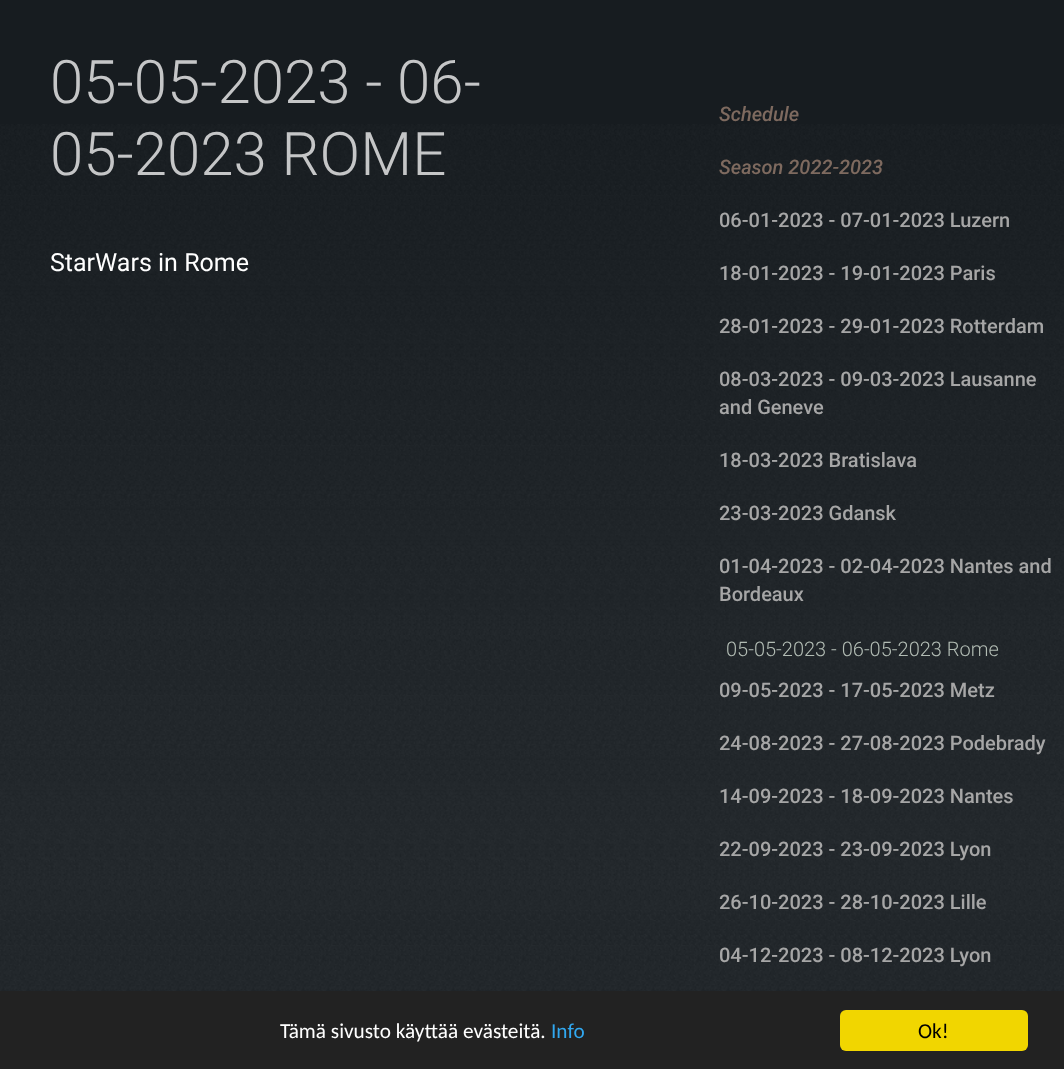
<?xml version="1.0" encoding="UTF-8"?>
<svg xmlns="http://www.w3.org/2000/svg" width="1064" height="1069">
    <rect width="100%" height="100%" fill="#171C20"/>
    <image x="0" y="124" width="1064" height="867" href="img_01.png"/>
    <text font-family="Roboto" font-size="60" font-weight="300" fill="#C5C6C7">
        <tspan x="50" y="103">05-05-2023 - 06-</tspan>
        <tspan x="50" y="175">05-2023 ROME</tspan>
    </text>
    <text x="50" y="271" font-family="Roboto" font-size="25" fill="#FFFFFF">StarWars in Rome</text>
    <text x="719" y="121" font-family="Roboto" font-size="20" font-weight="500" font-style="italic" fill="#7E6A5F">Schedule</text>
    <text x="719" y="174" font-family="Roboto" font-size="20" font-weight="500" font-style="italic" fill="#7E6A5F">Season 2022-2023</text>
    <text x="719" y="227" font-family="Roboto" font-size="20" font-weight="500" fill="#A6A6A6">06-01-2023 - 07-01-2023 Luzern</text>
    <text x="719" y="280" font-family="Roboto" font-size="20" font-weight="500" fill="#A6A6A6">18-01-2023 - 19-01-2023 Paris</text>
    <text x="719" y="333" font-family="Roboto" font-size="20" font-weight="500" fill="#A6A6A6">28-01-2023 - 29-01-2023 Rotterdam</text>
    <text font-family="Roboto" font-size="20" font-weight="500" fill="#A6A6A6">
        <tspan x="719" y="386">08-03-2023 - 09-03-2023 Lausanne</tspan>
        <tspan x="719" y="414">and Geneve</tspan>
    </text>
    <text x="719" y="467" font-family="Roboto" font-size="20" font-weight="500" fill="#A6A6A6">18-03-2023 Bratislava</text>
    <text x="719" y="520" font-family="Roboto" font-size="20" font-weight="500" fill="#A6A6A6">23-03-2023 Gdansk</text>
    <text font-family="Roboto" font-size="20" font-weight="500" fill="#A6A6A6">
        <tspan x="719" y="573">01-04-2023 - 02-04-2023 Nantes and</tspan>
        <tspan x="719" y="601">Bordeaux</tspan>
    </text>
    <text x="726" y="656" font-family="Roboto" font-size="20" font-weight="300" fill="#B2BCB4">05-05-2023 - 06-05-2023 Rome</text>
    <text x="719" y="697" font-family="Roboto" font-size="20" font-weight="500" fill="#A6A6A6">09-05-2023 - 17-05-2023 Metz</text>
    <text x="719" y="750" font-family="Roboto" font-size="20" font-weight="500" fill="#A6A6A6">24-08-2023 - 27-08-2023 Podebrady</text>
    <text x="719" y="803" font-family="Roboto" font-size="20" font-weight="500" fill="#A6A6A6">14-09-2023 - 18-09-2023 Nantes</text>
    <text x="719" y="856" font-family="Roboto" font-size="20" font-weight="500" fill="#A6A6A6">22-09-2023 - 23-09-2023 Lyon</text>
    <text x="719" y="909" font-family="Roboto" font-size="20" font-weight="500" fill="#A6A6A6">26-10-2023 - 28-10-2023 Lille</text>
    <text x="719" y="962" font-family="Roboto" font-size="20" font-weight="500" fill="#A6A6A6">04-12-2023 - 08-12-2023 Lyon</text>
    <rect x="0" y="991" width="1064" height="78" fill="#222222"/>
    <text x="280" y="1038" font-family="Carlito" font-size="21.25" fill="#FFFFFF">Tämä sivusto käyttää evästeitä.</text>
    <text x="551" y="1038" font-family="Carlito" font-size="21.25" fill="#31A8F0">Info</text>
    <rect x="840" y="1010" width="188" height="41" rx="6" fill="#F1D600"/>
    <text x="918" y="1038" font-family="Carlito" font-size="21.25" fill="#000000">Ok!</text>
</svg>
